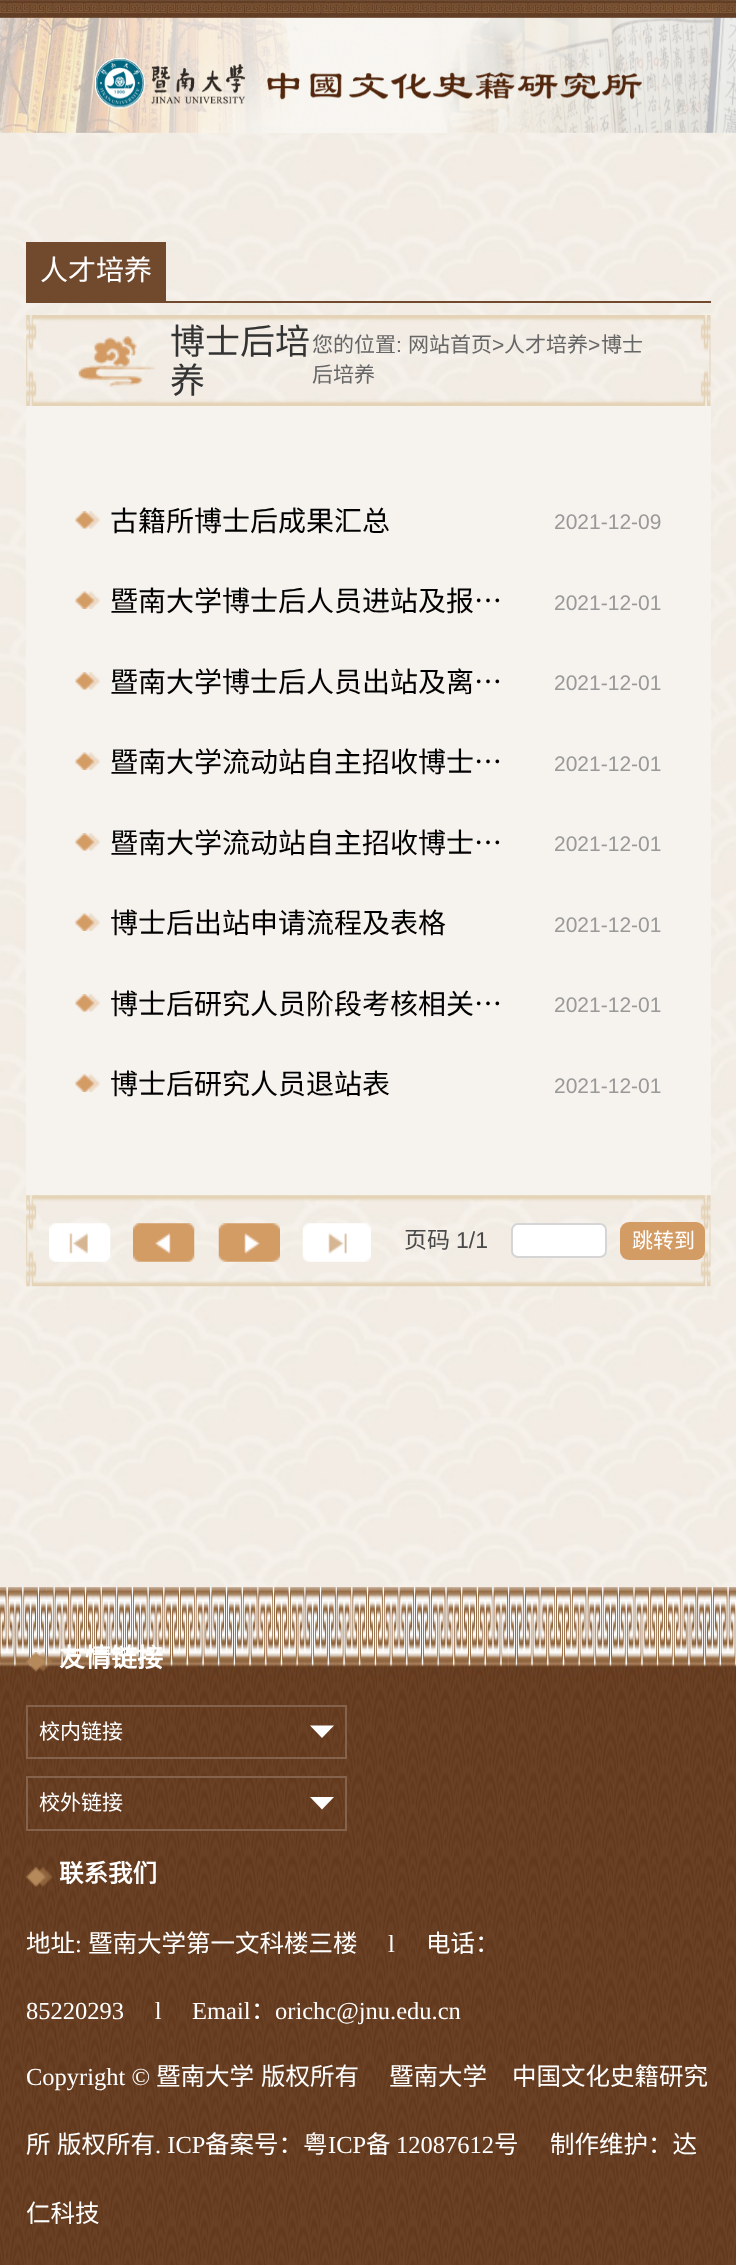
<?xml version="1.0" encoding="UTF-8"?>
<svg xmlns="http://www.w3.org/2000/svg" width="736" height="2265">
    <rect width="100%" height="100%" fill="#FFFFFF"/>
    <image x="0" y="1320" width="736" height="268" href="img_01.png"/>
    <image x="0" y="132" width="736" height="1188" href="img_02.png"/>
    <image x="0" y="0" width="736" height="133" href="img_03.png"/>
    <image x="0" y="0" width="736" height="18" href="img_04.png"/>
    <image x="95" y="58" width="547" height="51" href="img_05.png"/>
    <rect x="26" y="301" width="685" height="2" fill="#71492C"/>
    <rect x="26" y="242" width="140" height="59" fill="#71492C"/>
    <text x="40" y="280" font-family="Noto Sans CJK SC" font-size="28" fill="#FFFFFF">人才培养</text>
    <image x="26" y="315" width="685" height="91" href="img_06.png"/>
    <image x="78" y="336" width="78" height="51" href="img_07.png"/>
    <text font-family="Noto Sans CJK SC" font-size="35" fill="#333333">
        <tspan x="170" y="354">博士后培</tspan>
        <tspan x="170" y="393">养</tspan>
    </text>
    <text x="312" y="352" font-family="Noto Sans CJK SC" font-size="21" fill="#666666">您的位置</text>
    <text x="396" y="352" font-family="Liberation Sans" font-size="21" fill="#666666">:</text>
    <text x="408" y="352" font-family="Noto Sans CJK SC" font-size="21" fill="#666666">网站首页</text>
    <text x="492" y="352" font-family="Liberation Sans" font-size="21" fill="#666666">&gt;</text>
    <text x="504" y="352" font-family="Noto Sans CJK SC" font-size="21" fill="#666666">人才培养</text>
    <text x="588" y="352" font-family="Liberation Sans" font-size="21" fill="#666666">&gt;</text>
    <text x="601" y="352" font-family="Noto Sans CJK SC" font-size="21" fill="#666666">博士</text>
    <text x="312" y="382" font-family="Noto Sans CJK SC" font-size="21" fill="#666666">后培养</text>
    <rect x="26" y="406" width="685" height="789" fill="#F6F2ED"/>
    <image x="75" y="511" width="25" height="18" href="img_08.png"/>
    <text x="110" y="531" font-family="Noto Sans CJK SC" font-size="28" fill="#000000">古籍所博士后成果汇总</text>
    <text x="554" y="529" font-family="Liberation Sans" font-size="21" fill="#999999">2021-12-09</text>
    <image x="75" y="591" width="25" height="18" href="img_09.png"/>
    <text x="110" y="611" font-family="Noto Sans CJK SC" font-size="28" fill="#000000">暨南大学博士后人员进站及报…</text>
    <text x="554" y="610" font-family="Liberation Sans" font-size="21" fill="#999999">2021-12-01</text>
    <image x="75" y="672" width="25" height="18" href="img_08.png"/>
    <text x="110" y="692" font-family="Noto Sans CJK SC" font-size="28" fill="#000000">暨南大学博士后人员出站及离…</text>
    <text x="554" y="690" font-family="Liberation Sans" font-size="21" fill="#999999">2021-12-01</text>
    <image x="75" y="752" width="25" height="18" href="img_09.png"/>
    <text x="110" y="772" font-family="Noto Sans CJK SC" font-size="28" fill="#000000">暨南大学流动站自主招收博士…</text>
    <text x="554" y="771" font-family="Liberation Sans" font-size="21" fill="#999999">2021-12-01</text>
    <image x="75" y="833" width="25" height="18" href="img_08.png"/>
    <text x="110" y="853" font-family="Noto Sans CJK SC" font-size="28" fill="#000000">暨南大学流动站自主招收博士…</text>
    <text x="554" y="851" font-family="Liberation Sans" font-size="21" fill="#999999">2021-12-01</text>
    <image x="75" y="913" width="25" height="18" href="img_09.png"/>
    <text x="110" y="933" font-family="Noto Sans CJK SC" font-size="28" fill="#000000">博士后出站申请流程及表格</text>
    <text x="554" y="932" font-family="Liberation Sans" font-size="21" fill="#999999">2021-12-01</text>
    <image x="75" y="994" width="25" height="18" href="img_08.png"/>
    <text x="110" y="1014" font-family="Noto Sans CJK SC" font-size="28" fill="#000000">博士后研究人员阶段考核相关…</text>
    <text x="554" y="1012" font-family="Liberation Sans" font-size="21" fill="#999999">2021-12-01</text>
    <image x="75" y="1074" width="25" height="18" href="img_09.png"/>
    <text x="110" y="1094" font-family="Noto Sans CJK SC" font-size="28" fill="#000000">博士后研究人员退站表</text>
    <text x="554" y="1093" font-family="Liberation Sans" font-size="21" fill="#999999">2021-12-01</text>
    <image x="26" y="1195" width="685" height="92" href="img_10.png"/>
    <image x="49" y="1223" width="62" height="39" href="img_11.png"/>
    <image x="133" y="1223" width="62" height="39" href="img_12.png"/>
    <image x="218" y="1223" width="62" height="39" href="img_13.png"/>
    <image x="302" y="1223" width="69" height="39" href="img_14.png"/>
    <text x="404" y="1248" font-family="Noto Sans CJK SC" font-size="23" fill="#494949">页码</text>
    <text x="456" y="1248" font-family="Liberation Sans" font-size="23" fill="#494949">1/1</text>
    <rect x="512" y="1224" width="94" height="33" rx="6" fill="#FFFFFF" stroke="#D5D5D5" stroke-width="2"/>
    <rect x="620" y="1222" width="85" height="38" rx="9" fill="#D49C65"/>
    <text x="632" y="1248" font-family="Noto Sans CJK SC" font-size="21" fill="#FFFFFF">跳转到</text>
    <image x="0" y="1587" width="736" height="678" href="img_15.png"/>
    <image x="26" y="1652" width="27" height="20" href="img_16.png"/>
    <text x="59" y="1667" font-family="Noto Sans CJK SC" font-size="26" font-weight="700" fill="#FFFFFF">友情链接</text>
    <rect x="27" y="1706" width="319" height="52" fill="none" stroke="#84624B" stroke-width="2"/>
    <text x="39" y="1739" font-family="Noto Sans CJK SC" font-size="21" fill="#FFFFFF">校内链接</text>
    <path d="M 310 1725.5 H 334 L 322 1738 Z" fill="#FFFFFF"/>
    <rect x="27" y="1777" width="319" height="53" fill="none" stroke="#84624B" stroke-width="2"/>
    <text x="39" y="1810" font-family="Noto Sans CJK SC" font-size="21" fill="#FFFFFF">校外链接</text>
    <path d="M 310 1797 H 334 L 322 1809.5 Z" fill="#FFFFFF"/>
    <image x="26" y="1867" width="27" height="20" href="img_17.png"/>
    <text x="59" y="1882" font-family="Noto Sans CJK SC" font-size="24.5" font-weight="700" fill="#FFFFFF">联系我们</text>
    <text x="26" y="1952" font-family="Noto Sans CJK SC" font-size="24.5" fill="#FFFFFF">地址</text>
    <text x="75" y="1952" font-family="Liberation Serif" font-size="24.5" fill="#FFFFFF">:</text>
    <text x="88" y="1952" font-family="Noto Sans CJK SC" font-size="24.5" fill="#FFFFFF">暨南大学第一文科楼三楼</text>
    <text x="388" y="1952" font-family="Liberation Serif" font-size="24.5" fill="#FFFFFF">l</text>
    <text x="426" y="1952" font-family="Noto Sans CJK SC" font-size="24.5" fill="#FFFFFF">电话：</text>
    <text x="26" y="2019" font-family="Liberation Serif" font-size="24.5" fill="#FFFFFF" xml:space="preserve">85220293     l     Email</text>
    <text x="251" y="2019" font-family="Noto Sans CJK SC" font-size="24.5" fill="#FFFFFF">：</text>
    <text x="275" y="2019" font-family="Liberation Serif" font-size="24.5" fill="#FFFFFF">orichc@jnu.edu.cn</text>
    <text x="26" y="2085" font-family="Liberation Serif" font-size="24.5" fill="#FFFFFF">Copyright ©</text>
    <text x="156" y="2085" font-family="Noto Sans CJK SC" font-size="24.5" fill="#FFFFFF">暨南大学</text>
    <text x="261" y="2085" font-family="Noto Sans CJK SC" font-size="24.5" fill="#FFFFFF">版权所有</text>
    <text x="389" y="2085" font-family="Noto Sans CJK SC" font-size="24.5" fill="#FFFFFF">暨南大学</text>
    <text x="512" y="2085" font-family="Noto Sans CJK SC" font-size="24.5" fill="#FFFFFF">中国文化史籍研究</text>
    <text x="26" y="2153" font-family="Noto Sans CJK SC" font-size="24.5" fill="#FFFFFF">所</text>
    <text x="57" y="2153" font-family="Noto Sans CJK SC" font-size="24.5" fill="#FFFFFF">版权所有</text>
    <text x="155" y="2153" font-family="Liberation Serif" font-size="24.5" fill="#FFFFFF">. ICP</text>
    <text x="205" y="2153" font-family="Noto Sans CJK SC" font-size="24.5" fill="#FFFFFF">备案号：粤</text>
    <text x="328" y="2153" font-family="Liberation Serif" font-size="24.5" fill="#FFFFFF">ICP</text>
    <text x="366" y="2153" font-family="Noto Sans CJK SC" font-size="24.5" fill="#FFFFFF">备</text>
    <text x="396" y="2153" font-family="Liberation Serif" font-size="24.5" fill="#FFFFFF">12087612</text>
    <text x="494" y="2153" font-family="Noto Sans CJK SC" font-size="24.5" fill="#FFFFFF">号</text>
    <text x="550" y="2153" font-family="Noto Sans CJK SC" font-size="24.5" fill="#FFFFFF">制作维护：达</text>
    <text x="26" y="2222" font-family="Noto Sans CJK SC" font-size="24.5" fill="#FFFFFF">仁科技</text>
</svg>
